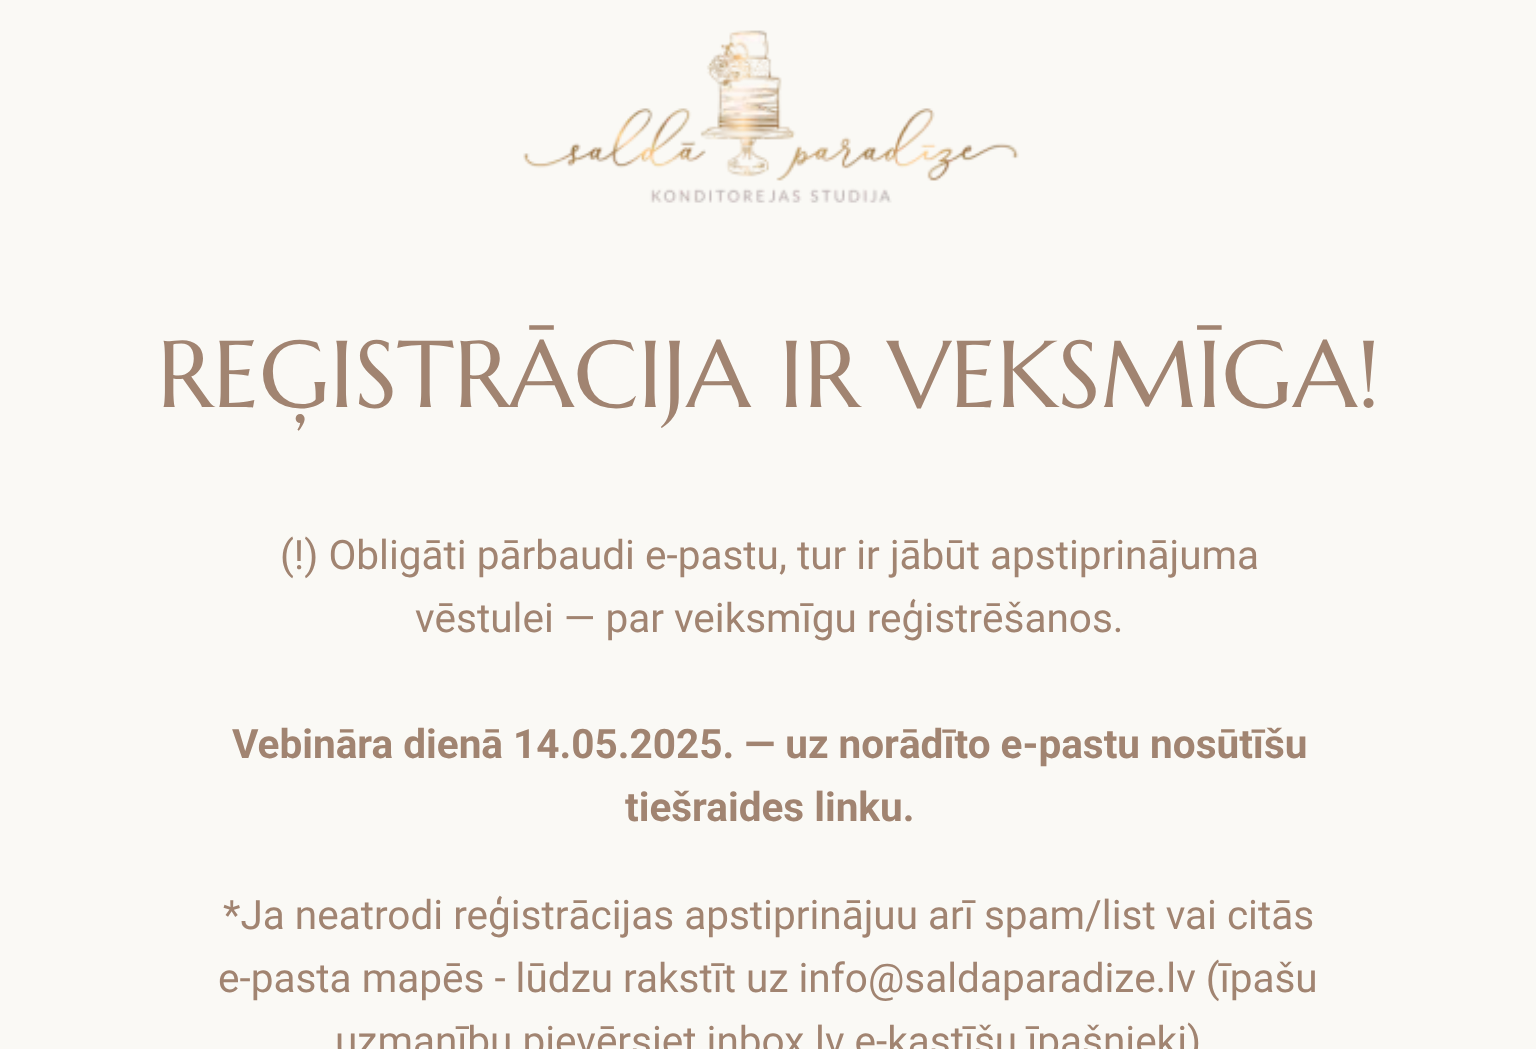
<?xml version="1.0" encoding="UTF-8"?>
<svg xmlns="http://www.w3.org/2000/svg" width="1536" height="1049">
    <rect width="100%" height="100%" fill="#FAF9F5"/>
    <image x="523" y="30" width="496" height="173" href="img_01.png"/>
    <text x="157" y="407" font-family="Marcellus" font-size="94.5" fill="#A18471">REĢISTRĀCIJA IR VEKSMĪGA!</text>
    <text x="280" y="569" font-family="Roboto" font-size="40.5" fill="#A18471">(!) Obligāti pārbaudi e-pastu, tur ir jābūt apstiprinājuma</text>
    <text x="415" y="632" font-family="Roboto" font-size="40.5" fill="#A18471">vēstulei — par veiksmīgu reģistrēšanos.</text>
    <text x="232" y="758" font-family="Roboto" font-size="40.5" font-weight="700" fill="#A18471">Vebināra dienā 14.05.2025. — uz norādīto e-pastu nosūtīšu</text>
    <text x="625" y="821" font-family="Roboto" font-size="40.5" font-weight="700" fill="#A18471">tiešraides linku.</text>
    <text x="223" y="929" font-family="Roboto" font-size="40.5" fill="#A18471">*Ja neatrodi reģistrācijas apstiprinājuu arī spam/list vai citās</text>
    <text x="218" y="992" font-family="Roboto" font-size="40.5" fill="#A18471">e-pasta mapēs - lūdzu rakstīt uz info@saldaparadize.lv (īpašu</text>
    <text x="335" y="1055" font-family="Roboto" font-size="40.5" fill="#A18471">uzmanību pievērsiet inbox.lv e-kastīšu īpašnieki)</text>
</svg>
